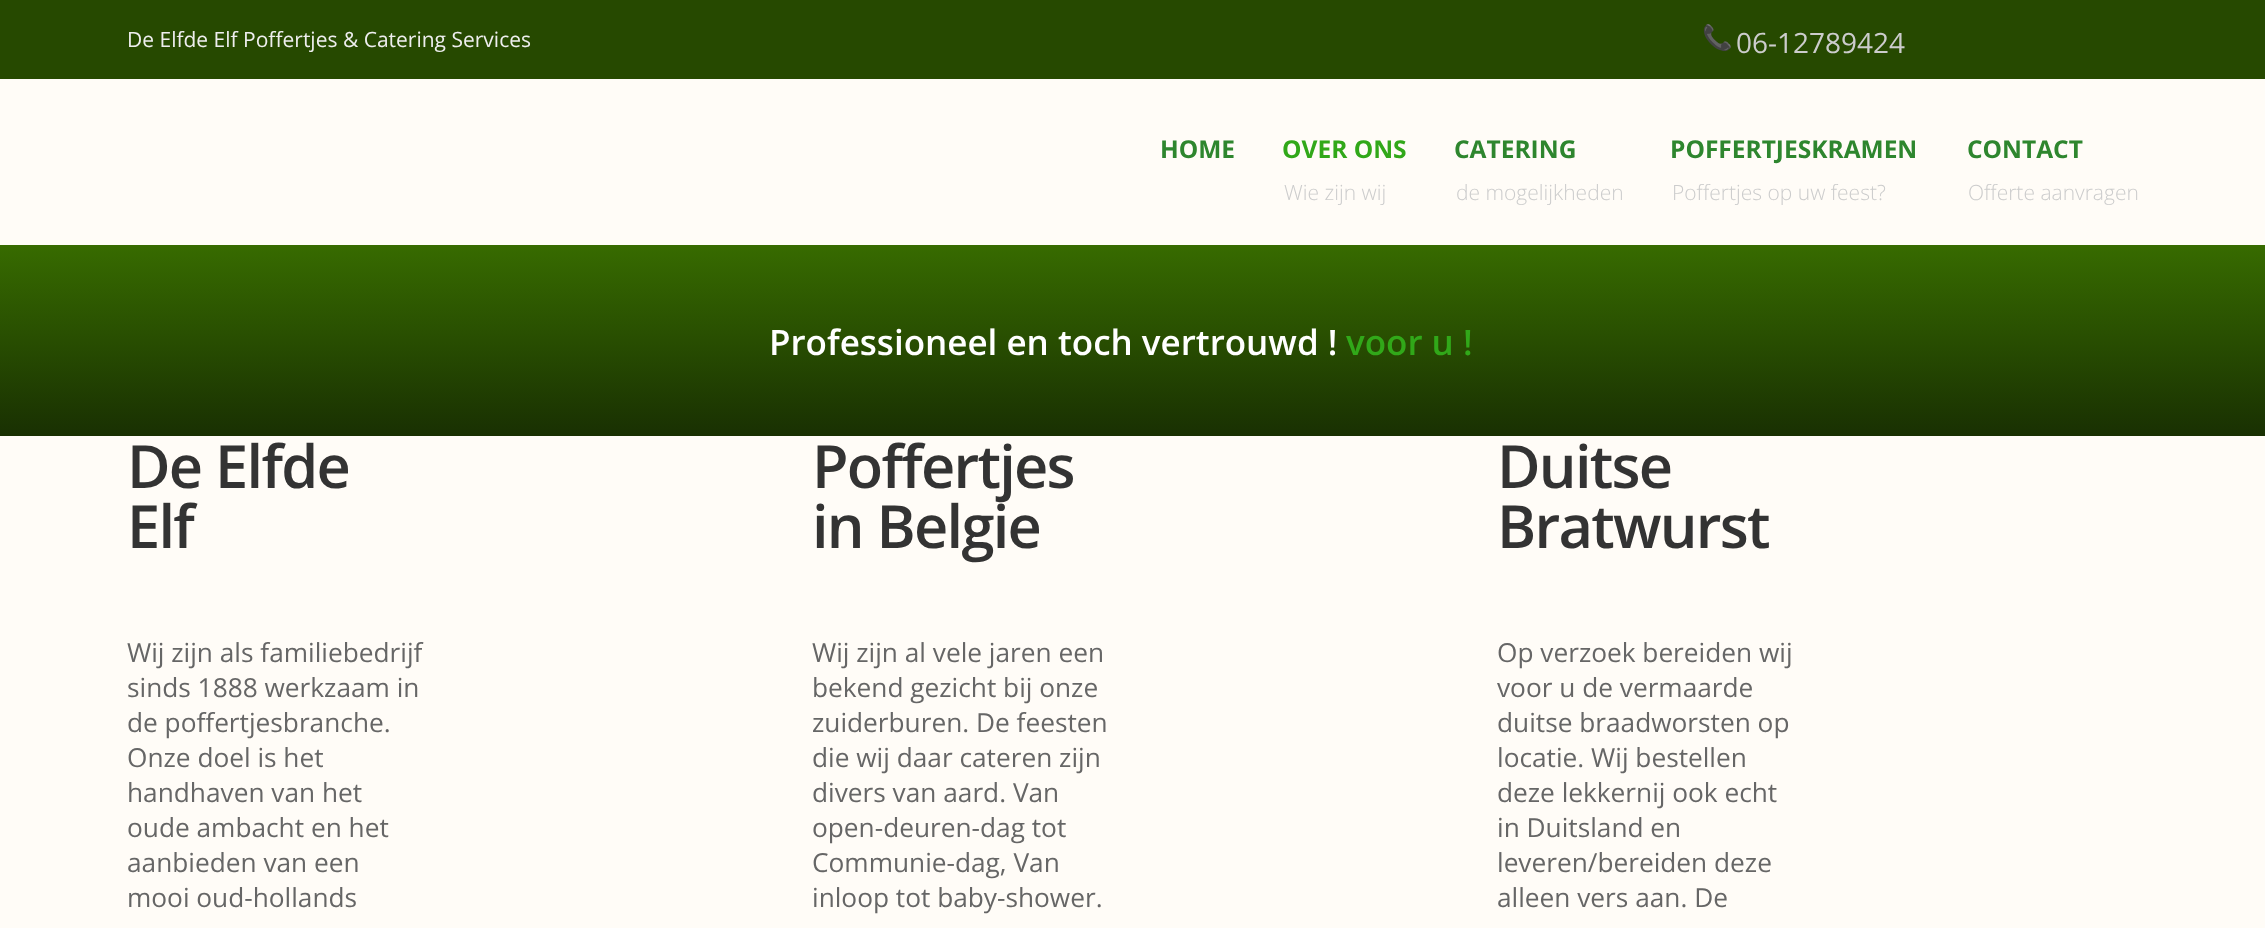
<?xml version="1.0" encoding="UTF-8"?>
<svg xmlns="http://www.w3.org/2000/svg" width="2265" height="928">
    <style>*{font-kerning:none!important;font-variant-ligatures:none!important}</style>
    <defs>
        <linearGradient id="g1" gradientUnits="userSpaceOnUse" x1="1133" y1="245" x2="1133" y2="436"><stop offset="0" stop-color="#376B00"/><stop offset="1" stop-color="#193002"/></linearGradient>
    </defs>
    <rect width="100%" height="100%" fill="#FFFCF7"/>
    <rect x="0" y="0" width="2265" height="79" fill="#264900"/>
    <text x="127" y="47" font-family="Open Sans" font-size="21" fill="#EEEEEE">De Elfde Elf Poffertjes &amp; Catering Services</text>
    <text x="1702" y="46" font-family="Noto Color Emoji" font-size="24.5" fill="#2D820F">📞</text>
    <text x="1736" y="53" font-family="Open Sans" font-size="28" fill="#CCCCCC">06-12789424</text>
    <text x="1160" y="158" font-family="Open Sans" font-size="24.5" font-weight="700" fill="#2E862E">HOME</text>
    <text x="1282" y="158" font-family="Open Sans" font-size="24.5" font-weight="700" fill="#31A819">OVER ONS</text>
    <text x="1284" y="200" font-family="Open Sans" font-size="21" font-weight="300" fill="#CCCCCC">Wie zijn wij</text>
    <text x="1454" y="158" font-family="Open Sans" font-size="24.5" font-weight="700" fill="#2E862E">CATERING</text>
    <text x="1456" y="200" font-family="Open Sans" font-size="21" font-weight="300" fill="#CCCCCC">de mogelijkheden</text>
    <text x="1670" y="158" font-family="Open Sans" font-size="24.5" font-weight="700" fill="#2E862E">POFFERTJESKRAMEN</text>
    <text x="1672" y="200" font-family="Open Sans" font-size="21" font-weight="300" fill="#CCCCCC">Poffertjes op uw feest?</text>
    <text x="1967" y="158" font-family="Open Sans" font-size="24.5" font-weight="700" fill="#2E862E">CONTACT</text>
    <text x="1968" y="200" font-family="Open Sans" font-size="21" font-weight="300" fill="#CCCCCC">Offerte aanvragen</text>
    <rect x="0" y="245" width="2265" height="191" fill="url(#g1)"/>
    <text x="769" y="355" font-family="Open Sans" font-size="35" font-weight="600" fill="#FFFFFF">Professioneel en toch vertrouwd !</text>
    <text x="1346" y="355" font-family="Open Sans" font-size="35" font-weight="600" fill="#31A819">voor u !</text>
    <text font-family="Open Sans" font-size="59.5" font-weight="600" letter-spacing="-1.75" fill="#333333">
        <tspan x="127" y="488">De Elfde</tspan>
        <tspan x="127" y="548">Elf</tspan>
    </text>
    <text font-family="Open Sans" font-size="26.25" fill="#666666">
        <tspan x="127" y="662">Wij zijn als familiebedrijf</tspan>
        <tspan x="127" y="697">sinds 1888 werkzaam in</tspan>
        <tspan x="127" y="732">de poffertjesbranche.</tspan>
        <tspan x="127" y="767">Onze doel is het</tspan>
        <tspan x="127" y="802">handhaven van het</tspan>
        <tspan x="127" y="837">oude ambacht en het</tspan>
        <tspan x="127" y="872">aanbieden van een</tspan>
        <tspan x="127" y="907">mooi oud-hollands</tspan>
    </text>
    <text font-family="Open Sans" font-size="59.5" font-weight="600" letter-spacing="-1.75" fill="#333333">
        <tspan x="812" y="488">Poffertjes</tspan>
        <tspan x="812" y="548">in Belgie</tspan>
    </text>
    <text font-family="Open Sans" font-size="26.25" fill="#666666">
        <tspan x="812" y="662">Wij zijn al vele jaren een</tspan>
        <tspan x="812" y="697">bekend gezicht bij onze</tspan>
        <tspan x="812" y="732">zuiderburen. De feesten</tspan>
        <tspan x="812" y="767">die wij daar cateren zijn</tspan>
        <tspan x="812" y="802">divers van aard. Van</tspan>
        <tspan x="812" y="837">open-deuren-dag tot</tspan>
        <tspan x="812" y="872">Communie-dag, Van</tspan>
        <tspan x="812" y="907">inloop tot baby-shower.</tspan>
    </text>
    <text font-family="Open Sans" font-size="59.5" font-weight="600" letter-spacing="-1.75" fill="#333333">
        <tspan x="1497" y="488">Duitse</tspan>
        <tspan x="1497" y="548">Bratwurst</tspan>
    </text>
    <text font-family="Open Sans" font-size="26.25" fill="#666666">
        <tspan x="1497" y="662">Op verzoek bereiden wij</tspan>
        <tspan x="1497" y="697">voor u de vermaarde</tspan>
        <tspan x="1497" y="732">duitse braadworsten op</tspan>
        <tspan x="1497" y="767">locatie. Wij bestellen</tspan>
        <tspan x="1497" y="802">deze lekkernij ook echt</tspan>
        <tspan x="1497" y="837">in Duitsland en</tspan>
        <tspan x="1497" y="872">leveren/bereiden deze</tspan>
        <tspan x="1497" y="907">alleen vers aan. De</tspan>
    </text>
</svg>
